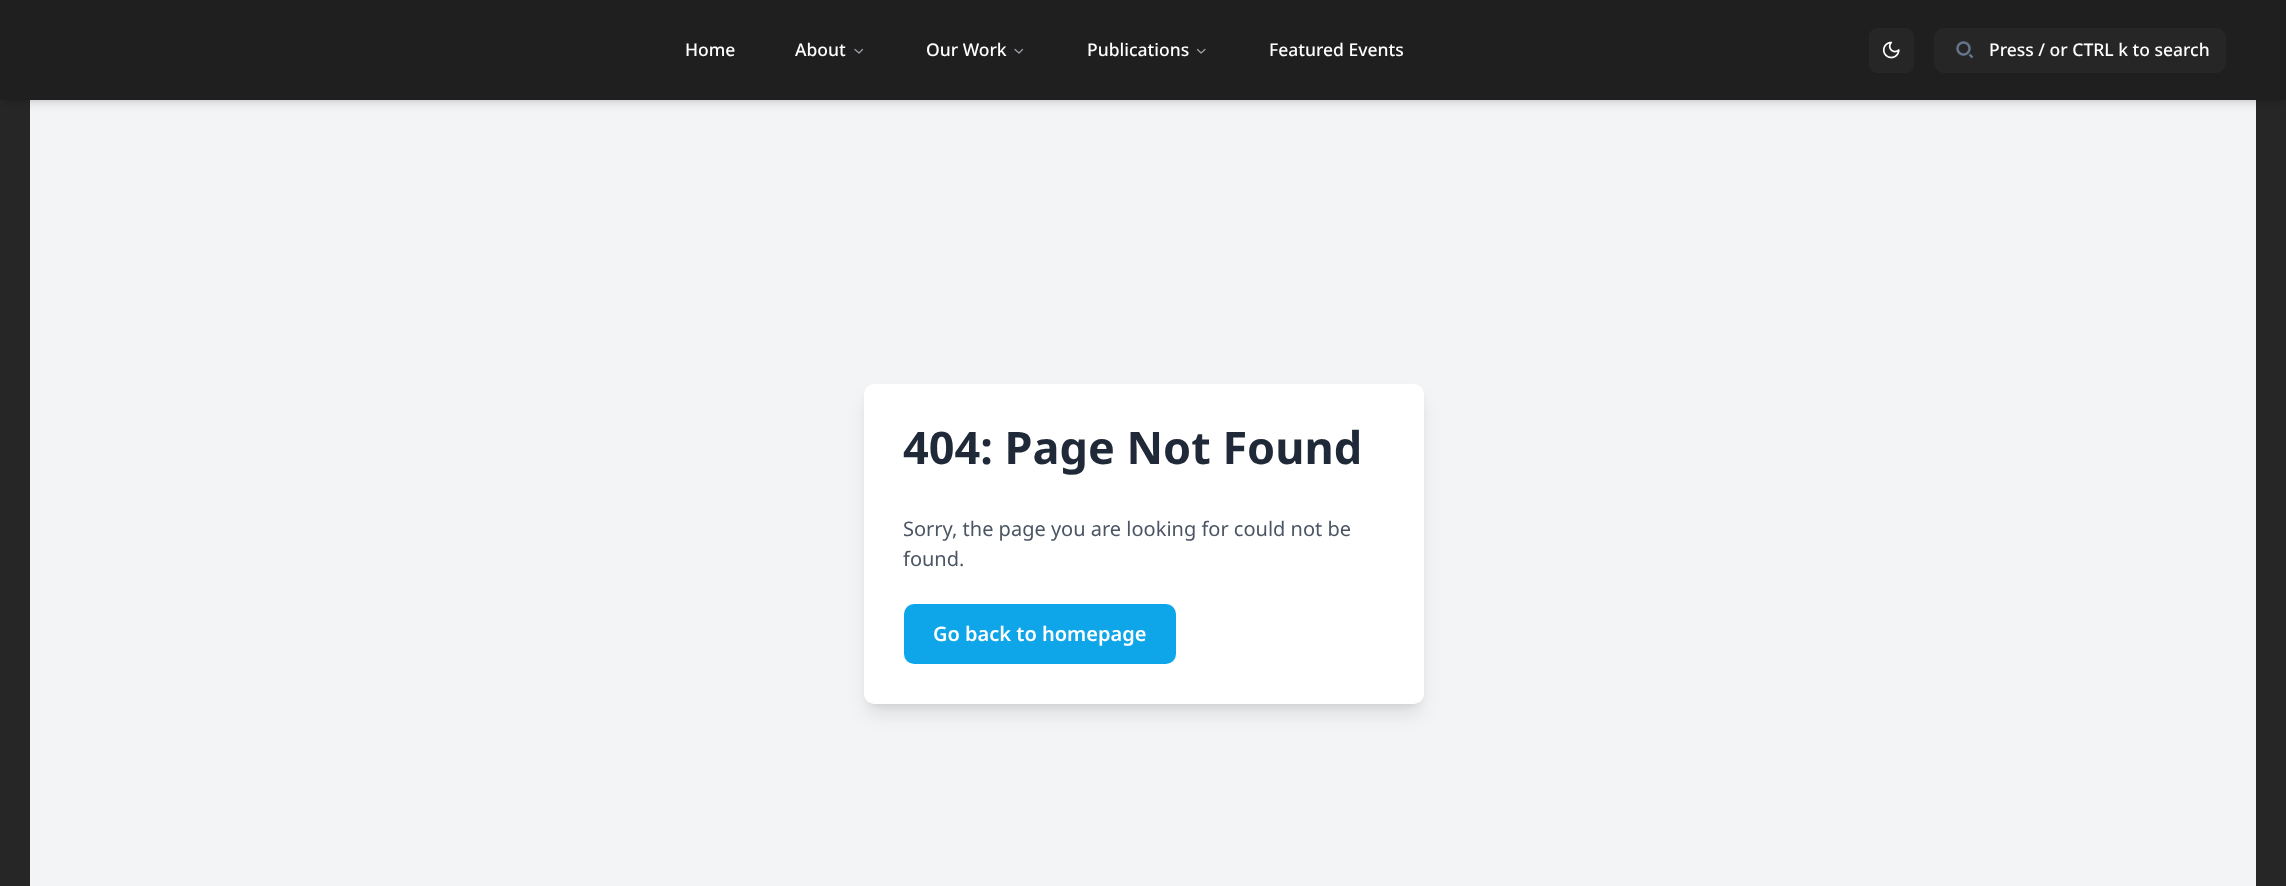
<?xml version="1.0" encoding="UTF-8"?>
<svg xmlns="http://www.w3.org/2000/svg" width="2286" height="886">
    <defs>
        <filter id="blur1" x="-50%" y="-200%" width="200%" height="500%"><feGaussianBlur stdDeviation="2.5"/></filter>
        <filter id="blur2" x="-50%" y="-200%" width="200%" height="500%"><feGaussianBlur stdDeviation="4"/></filter>
        <filter id="blur3" x="-50%" y="-200%" width="200%" height="500%"><feGaussianBlur stdDeviation="9.5"/></filter>
    </defs>
    <rect width="100%" height="100%" fill="#262626"/>
    <rect x="30" y="100" width="2226" height="786" fill="#F3F4F6"/>
    <rect x="3" y="5" width="2281" height="95" fill="#000000" fill-opacity="0.1" filter="url(#blur1)"/>
    <rect x="1" y="6" width="2284" height="98" fill="#000000" fill-opacity="0.1" filter="url(#blur2)"/>
    <rect x="0" y="0" width="2286" height="100" fill="#1F1F1F"/>
    <text x="685" y="56" font-family="Noto Sans" font-size="17.5" font-weight="500" fill="#FFFFFF">Home</text>
    <text x="795" y="56" font-family="Noto Sans" font-size="17.5" font-weight="500" fill="#FFFFFF">About</text>
    <path d="M 855 49.5 L 859 53 L 862.5 49.5" fill="none" stroke="#A1A1AA" stroke-width="1.2" stroke-linecap="round" stroke-linejoin="round"/>
    <text x="926" y="56" font-family="Noto Sans" font-size="17.5" font-weight="500" fill="#FFFFFF">Our Work</text>
    <path d="M 1015 49.5 L 1019 53 L 1022.5 49.5" fill="none" stroke="#A1A1AA" stroke-width="1.2" stroke-linecap="round" stroke-linejoin="round"/>
    <text x="1087" y="56" font-family="Noto Sans" font-size="17.5" font-weight="500" fill="#FFFFFF">Publications</text>
    <path d="M 1197.5 49.5 L 1201 53 L 1205 49.5" fill="none" stroke="#A1A1AA" stroke-width="1.2" stroke-linecap="round" stroke-linejoin="round"/>
    <text x="1269" y="56" font-family="Noto Sans" font-size="17.5" font-weight="500" fill="#FFFFFF">Featured Events</text>
    <rect x="1869.5" y="28.5" width="44" height="44" rx="7.5" fill="#262626" stroke="#27272A"/>
    <image x="1882" y="41" width="18" height="18" href="img_01.png"/>
    <rect x="1934.5" y="28.5" width="291" height="44" rx="9.5" fill="#262626" stroke="#27272A"/>
    <image x="1956" y="41" width="18" height="18" href="img_02.png"/>
    <text x="1989" y="56" font-family="Noto Sans" font-size="17.5" font-weight="500" fill="#FFFFFF">Press / or CTRL k to search</text>
    <rect x="869" y="394" width="550" height="310" rx="5" fill="#000000" fill-opacity="0.1" filter="url(#blur2)"/>
    <rect x="868" y="400" width="552" height="313" rx="6" fill="#000000" fill-opacity="0.1" filter="url(#blur3)"/>
    <rect x="864" y="384" width="560" height="320" rx="10" fill="#FFFFFF"/>
    <text x="903" y="464" font-family="Noto Sans" font-size="45" font-weight="700" fill="#1F2937">404: Page Not Found</text>
    <text font-family="Noto Sans" font-size="20" fill="#4B5563">
        <tspan x="903" y="536">Sorry, the page you are looking for could not be</tspan>
        <tspan x="903" y="566">found.</tspan>
    </text>
    <rect x="904" y="604" width="272" height="60" rx="10" fill="#0EA5E9"/>
    <text x="933" y="641" font-family="Noto Sans" font-size="20" font-weight="600" fill="#FFFFFF">Go back to homepage</text>
</svg>
